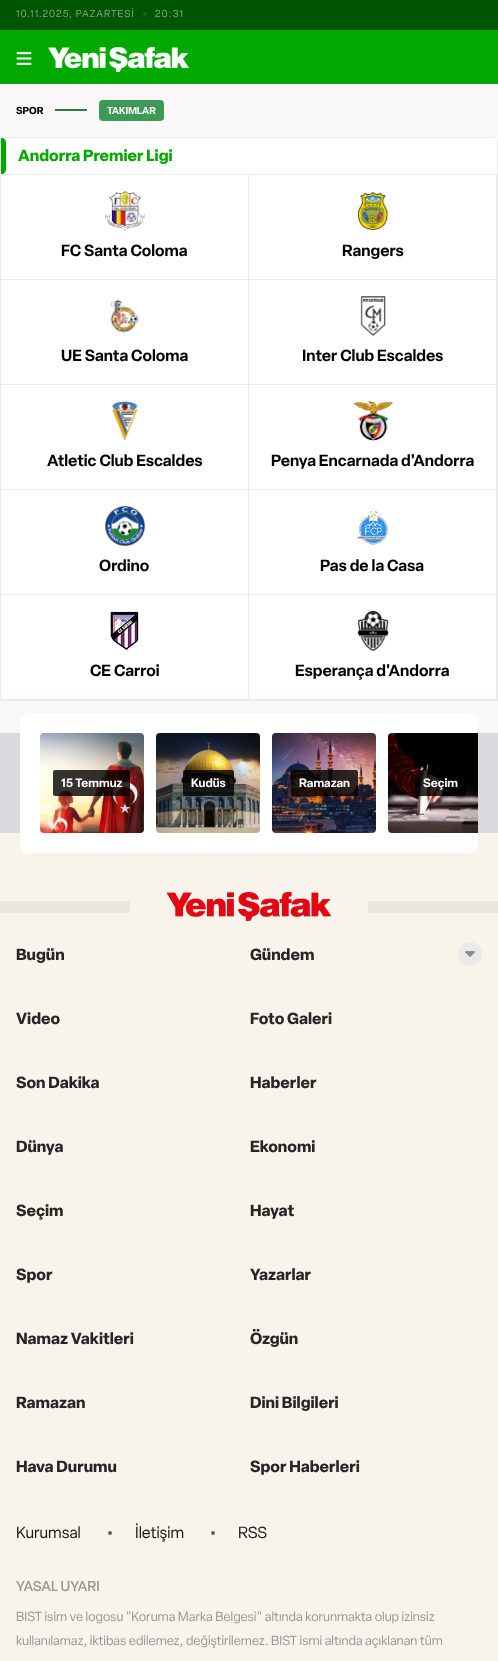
<?xml version="1.0" encoding="UTF-8"?>
<svg xmlns="http://www.w3.org/2000/svg" width="498" height="1661">
    <defs>
        <clipPath id="clip1"><rect x="250" y="1329" width="228" height="20"/></clipPath>
    </defs>
    <rect width="100%" height="100%" fill="#F9F7F7"/>
    <rect x="0" y="0" width="498" height="30" fill="#005500"/>
    <text x="16" y="17" font-family="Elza" font-size="10" letter-spacing="1" fill="#80AA80">10.11.2025, PAZARTESİ</text>
    <circle cx="145" cy="14" r="2" fill="#1A661A"/>
    <text x="155" y="17" font-family="Elza" font-size="10" letter-spacing="1" fill="#80AA80">20:31</text>
    <rect x="0" y="30" width="498" height="54" fill="#00A900"/>
    <image x="16" y="52" width="16" height="13" href="img_01.png"/>
    <image x="48" y="47" width="141" height="25" href="img_02.png"/>
    <text x="16" y="114" font-family="Elza" font-size="10" font-weight="700" fill="#000000">SPOR</text>
    <rect x="99" y="100" width="65" height="21" rx="4" fill="#3F9956"/>
    <rect x="55" y="109" width="32" height="2" fill="#337A46"/>
    <text x="107" y="114" font-family="Elza" font-size="10" font-weight="600" fill="#FFFFFF">TAKIMLAR</text>
    <path d="M 4 137 H 494 C 496 137 498 139 498 141 V 701 H 0 V 141 C 0 139 2 137 4 137 Z" fill="#FFFFFF"/>
    <path d="M 0 141 V 701 H 498 V 141 L 497 138 V 700 H 1 V 138 Z M 4 137 L 1 138 H 497 L 494 137 Z" fill="#EBEBEB" fill-rule="evenodd"/>
    <rect x="1" y="174" width="496" height="1" fill="#EBEBEB"/>
    <path d="M 1 138 H 2 C 4 138 6 140 6 142 V 170 C 6 172 4 174 2 174 H 1 Z" fill="#00A900"/>
    <text x="18" y="161" font-family="Elza" font-size="16" font-weight="700" fill="#00A900">Andorra Premier Ligi</text>
    <rect x="248" y="175" width="1" height="525" fill="#EBEBEB"/>
    <rect x="1" y="279" width="248" height="1" fill="#EBEBEB"/>
    <image x="105" y="191" width="40" height="40" href="img_03.png"/>
    <text x="61" y="256" font-family="Elza" font-size="16" font-weight="600" fill="#000000">FC Santa Coloma</text>
    <rect x="496" y="175" width="1" height="525" fill="#EBEBEB"/>
    <rect x="249" y="279" width="248" height="1" fill="#EBEBEB"/>
    <image x="357" y="191" width="32" height="40" href="img_04.png"/>
    <text x="342" y="256" font-family="Elza" font-size="16" font-weight="600" fill="#000000">Rangers</text>
    <rect x="1" y="384" width="496" height="1" fill="#EBEBEB"/>
    <image x="110" y="299" width="30" height="34" href="img_05.png"/>
    <text x="61" y="361" font-family="Elza" font-size="16" font-weight="600" fill="#000000">UE Santa Coloma</text>
    <image x="360" y="296" width="26" height="40" href="img_06.png"/>
    <text x="302" y="361" font-family="Elza" font-size="16" font-weight="600" fill="#000000">Inter Club Escaldes</text>
    <rect x="1" y="489" width="496" height="1" fill="#EBEBEB"/>
    <image x="111" y="401" width="27" height="39" href="img_07.png"/>
    <text x="47" y="466" font-family="Elza" font-size="16" font-weight="600" fill="#000000">Atletic Club Escaldes</text>
    <image x="353" y="401" width="40" height="40" href="img_08.png"/>
    <text x="271" y="466" font-family="Elza" font-size="16" font-weight="600" fill="#000000">Penya Encarnada d'Andorra</text>
    <rect x="1" y="594" width="496" height="1" fill="#EBEBEB"/>
    <image x="105" y="506" width="40" height="40" href="img_09.png"/>
    <text x="99" y="571" font-family="Elza" font-size="16" font-weight="600" fill="#000000">Ordino</text>
    <image x="357" y="510" width="31" height="35" href="img_10.png"/>
    <text x="320" y="571" font-family="Elza" font-size="16" font-weight="600" fill="#000000">Pas de la Casa</text>
    <rect x="1" y="699" width="496" height="1" fill="#EBEBEB"/>
    <image x="110" y="611" width="29" height="40" href="img_11.png"/>
    <text x="90" y="676" font-family="Elza" font-size="16" font-weight="600" fill="#000000">CE Carroi</text>
    <image x="357" y="611" width="32" height="40" href="img_12.png"/>
    <text x="295" y="676" font-family="Elza" font-size="16" font-weight="600" fill="#000000">Esperança d'Andorra</text>
    <rect x="0" y="733" width="498" height="100" fill="#DADADE"/>
    <rect x="0" y="833" width="498" height="828" fill="#F8F4EC"/>
    <rect x="20" y="713" width="458" height="140" rx="8" fill="#FFFFFF"/>
    <image x="40" y="733" width="104" height="100" href="img_13.png"/>
    <rect x="53" y="770" width="77" height="26" rx="2" fill="#000000" fill-opacity="0.8"/>
    <text x="61" y="787" font-family="Elza" font-size="12" font-weight="600" fill="#FFFFFF">15 Temmuz</text>
    <image x="156" y="733" width="104" height="100" href="img_14.png"/>
    <rect x="183" y="770" width="51" height="26" rx="2" fill="#000000" fill-opacity="0.8"/>
    <text x="191" y="787" font-family="Elza" font-size="12" font-weight="600" fill="#FFFFFF">Kudüs</text>
    <image x="272" y="733" width="104" height="100" href="img_15.png"/>
    <rect x="291" y="770" width="67" height="26" rx="2" fill="#000000" fill-opacity="0.8"/>
    <text x="299" y="787" font-family="Elza" font-size="12" font-weight="600" fill="#FFFFFF">Ramazan</text>
    <image x="388" y="733" width="90" height="100" href="img_16.png"/>
    <rect x="415" y="770" width="51" height="26" rx="2" fill="#000000" fill-opacity="0.8"/>
    <text x="423" y="787" font-family="Elza" font-size="12" font-weight="600" fill="#FFFFFF">Seçim</text>
    <rect x="0" y="901" width="498" height="12" fill="#EAE7E1"/>
    <rect x="130" y="901" width="238" height="12" fill="#F8F4EC"/>
    <image x="166" y="892" width="166" height="29" href="img_17.png"/>
    <text x="16" y="960" font-family="Elza" font-size="16" font-weight="700" fill="#262626">Bugün</text>
    <text x="250" y="960" font-family="Elza" font-size="16" font-weight="700" fill="#262626">Gündem</text>
    <circle cx="470" cy="954" r="12" fill="#EAEAEA"/>
    <image x="465" y="951" width="10" height="6" href="img_18.png"/>
    <text x="16" y="1024" font-family="Elza" font-size="16" font-weight="700" fill="#262626">Video</text>
    <text x="250" y="1024" font-family="Elza" font-size="16" font-weight="700" fill="#262626">Foto Galeri</text>
    <text x="16" y="1088" font-family="Elza" font-size="16" font-weight="700" fill="#262626">Son Dakika</text>
    <text x="250" y="1088" font-family="Elza" font-size="16" font-weight="700" fill="#262626">Haberler</text>
    <text x="16" y="1152" font-family="Elza" font-size="16" font-weight="700" fill="#262626">Dünya</text>
    <text x="250" y="1152" font-family="Elza" font-size="16" font-weight="700" fill="#262626">Ekonomi</text>
    <text x="16" y="1216" font-family="Elza" font-size="16" font-weight="700" fill="#262626">Seçim</text>
    <text x="250" y="1216" font-family="Elza" font-size="16" font-weight="700" fill="#262626">Hayat</text>
    <text x="16" y="1280" font-family="Elza" font-size="16" font-weight="700" fill="#262626">Spor</text>
    <text x="250" y="1280" font-family="Elza" font-size="16" font-weight="700" fill="#262626">Yazarlar</text>
    <text x="16" y="1344" font-family="Elza" font-size="16" font-weight="700" fill="#262626">Namaz Vakitleri</text>
    <g clip-path="url(#clip1)">
        <text x="250" y="1344" font-family="Elza" font-size="16" font-weight="700" fill="#262626">Özgün</text>
    </g>
    <text x="16" y="1408" font-family="Elza" font-size="16" font-weight="700" fill="#262626">Ramazan</text>
    <text x="250" y="1408" font-family="Elza" font-size="16" font-weight="700" fill="#262626">Dini Bilgileri</text>
    <text x="16" y="1472" font-family="Elza" font-size="16" font-weight="700" fill="#262626">Hava Durumu</text>
    <text x="250" y="1472" font-family="Elza" font-size="16" font-weight="700" fill="#262626">Spor Haberleri</text>
    <text x="16" y="1538" font-family="Elza" font-size="16" fill="#17191A">Kurumsal</text>
    <circle cx="110" cy="1533" r="2" fill="#606060"/>
    <text x="135" y="1538" font-family="Elza" font-size="16" fill="#17191A">İletişim</text>
    <circle cx="213" cy="1533" r="2" fill="#606060"/>
    <text x="238" y="1538" font-family="Elza" font-size="16" fill="#17191A">RSS</text>
    <text x="16" y="1591" font-family="Elza" font-size="14" font-weight="500" fill="#989898">YASAL UYARI</text>
    <text font-family="Elza" font-size="13" fill="#989898">
        <tspan x="16" y="1621">BIST isim ve logosu "Koruma Marka Belgesi" altında korunmakta olup izinsiz</tspan>
        <tspan x="16" y="1645">kullanılamaz, iktibas edilemez, değiştirilemez. BIST ismi altında açıklanan tüm</tspan>
    </text>
</svg>
